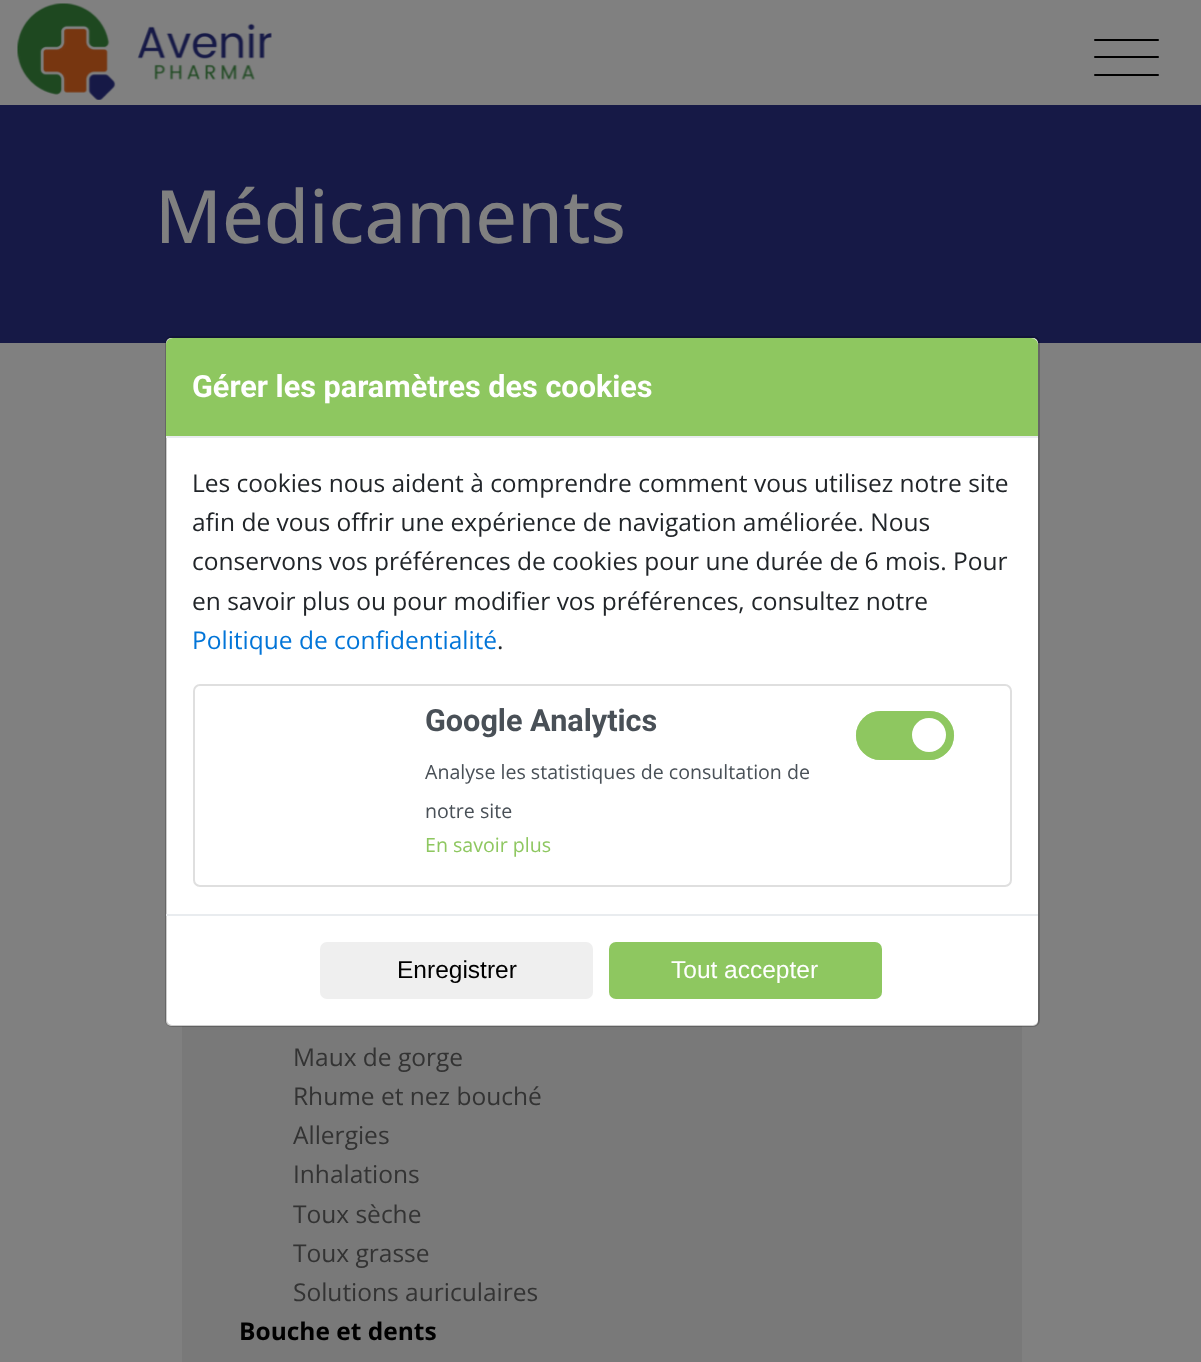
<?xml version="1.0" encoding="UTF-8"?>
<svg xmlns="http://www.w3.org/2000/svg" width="1201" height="1362">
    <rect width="100%" height="100%" fill="#808080"/>
    <image x="17" y="3" width="255" height="97" href="img_01.png"/>
    <rect x="1094" y="39" width="65" height="2" rx="1" fill="#000000"/>
    <rect x="1094" y="56" width="65" height="2" rx="1" fill="#000000"/>
    <rect x="1094" y="74" width="65" height="2" rx="1" fill="#000000"/>
    <rect x="0" y="105" width="1201" height="238" fill="#161946"/>
    <text x="155" y="243" font-family="Open Sans" font-size="73.5" font-weight="500" fill="#808080">Médicaments</text>
    <rect x="182" y="1026" width="840" height="336" fill="#797979"/>
    <text font-family="Open Sans" font-size="24.5" fill="#333333">
        <tspan x="293" y="1066">Maux de gorge</tspan>
        <tspan x="293" y="1105">Rhume et nez bouché</tspan>
        <tspan x="293" y="1144">Allergies</tspan>
        <tspan x="293" y="1183">Inhalations</tspan>
        <tspan x="293" y="1223">Toux sèche</tspan>
        <tspan x="293" y="1262">Toux grasse</tspan>
        <tspan x="293" y="1301">Solutions auriculaires</tspan>
    </text>
    <text x="239" y="1340" font-family="Open Sans" font-size="24.5" font-weight="700" fill="#000000">Bouche et dents</text>
    <rect x="166" y="338" width="872" height="688" rx="5" fill="#FFFFFF"/>
    <rect x="166" y="337" width="873" height="689" rx="6" fill="none" stroke="#000000" stroke-opacity="0.2" stroke-width="2"/>
    <path d="M 173 338 H 1031 C 1035 338 1038 341 1038 345 V 438 H 166 V 345 C 166 341 169 338 173 338 Z" fill="#8EC760"/>
    <rect x="166" y="436" width="872" height="2" fill="#E9ECEF"/>
    <text x="192" y="397" font-family="Roboto" font-size="30.6" font-weight="700" fill="#FFFFFF">Gérer les paramètres des cookies</text>
    <text font-family="Open Sans" font-size="24.5" fill="#212529">
        <tspan x="192" y="492">Les cookies nous aident à comprendre comment vous utilisez notre site</tspan>
        <tspan x="192" y="531">afin de vous offrir une expérience de navigation améliorée. Nous</tspan>
        <tspan x="192" y="570">conservons vos préférences de cookies pour une durée de 6 mois. Pour</tspan>
        <tspan x="192" y="610">en savoir plus ou pour modifier vos préférences, consultez notre</tspan>
    </text>
    <text x="192" y="649" font-family="Open Sans" font-size="24.5" fill="#0275D8">Politique de confidentialité</text>
    <text x="497" y="649" font-family="Open Sans" font-size="24.5" fill="#212529">.</text>
    <rect x="194" y="685" width="817" height="201" rx="6" fill="none" stroke="#DFDFDF" stroke-width="2"/>
    <text x="425" y="731" font-family="Roboto" font-size="30.6" font-weight="700" fill="#495057">Google Analytics</text>
    <text font-family="Open Sans" font-size="19.6" fill="#495057">
        <tspan x="425" y="779">Analyse les statistiques de consultation de</tspan>
        <tspan x="425" y="818">notre site</tspan>
    </text>
    <text x="425" y="852" font-family="Open Sans" font-size="19.6" fill="#8EC760">En savoir plus</text>
    <rect x="856" y="711" width="98" height="49" rx="24.5" fill="#8EC760"/>
    <circle cx="929" cy="735" r="17" fill="#FFFFFF"/>
    <rect x="857" y="712" width="96" height="47" rx="23.5" fill="none" stroke="#8EC760" stroke-opacity="0.7" stroke-width="2"/>
    <rect x="166" y="914" width="872" height="2" fill="#E9ECEF"/>
    <rect x="320" y="942" width="273" height="57" rx="7" fill="#EFEFEF"/>
    <text x="397" y="978" font-family="Liberation Sans" font-size="24.5" fill="#000000">Enregistrer</text>
    <rect x="609" y="942" width="273" height="57" rx="7" fill="#8EC760"/>
    <text x="671" y="978" font-family="Liberation Sans" font-size="24.5" fill="#FFFFFF">Tout accepter</text>
</svg>
